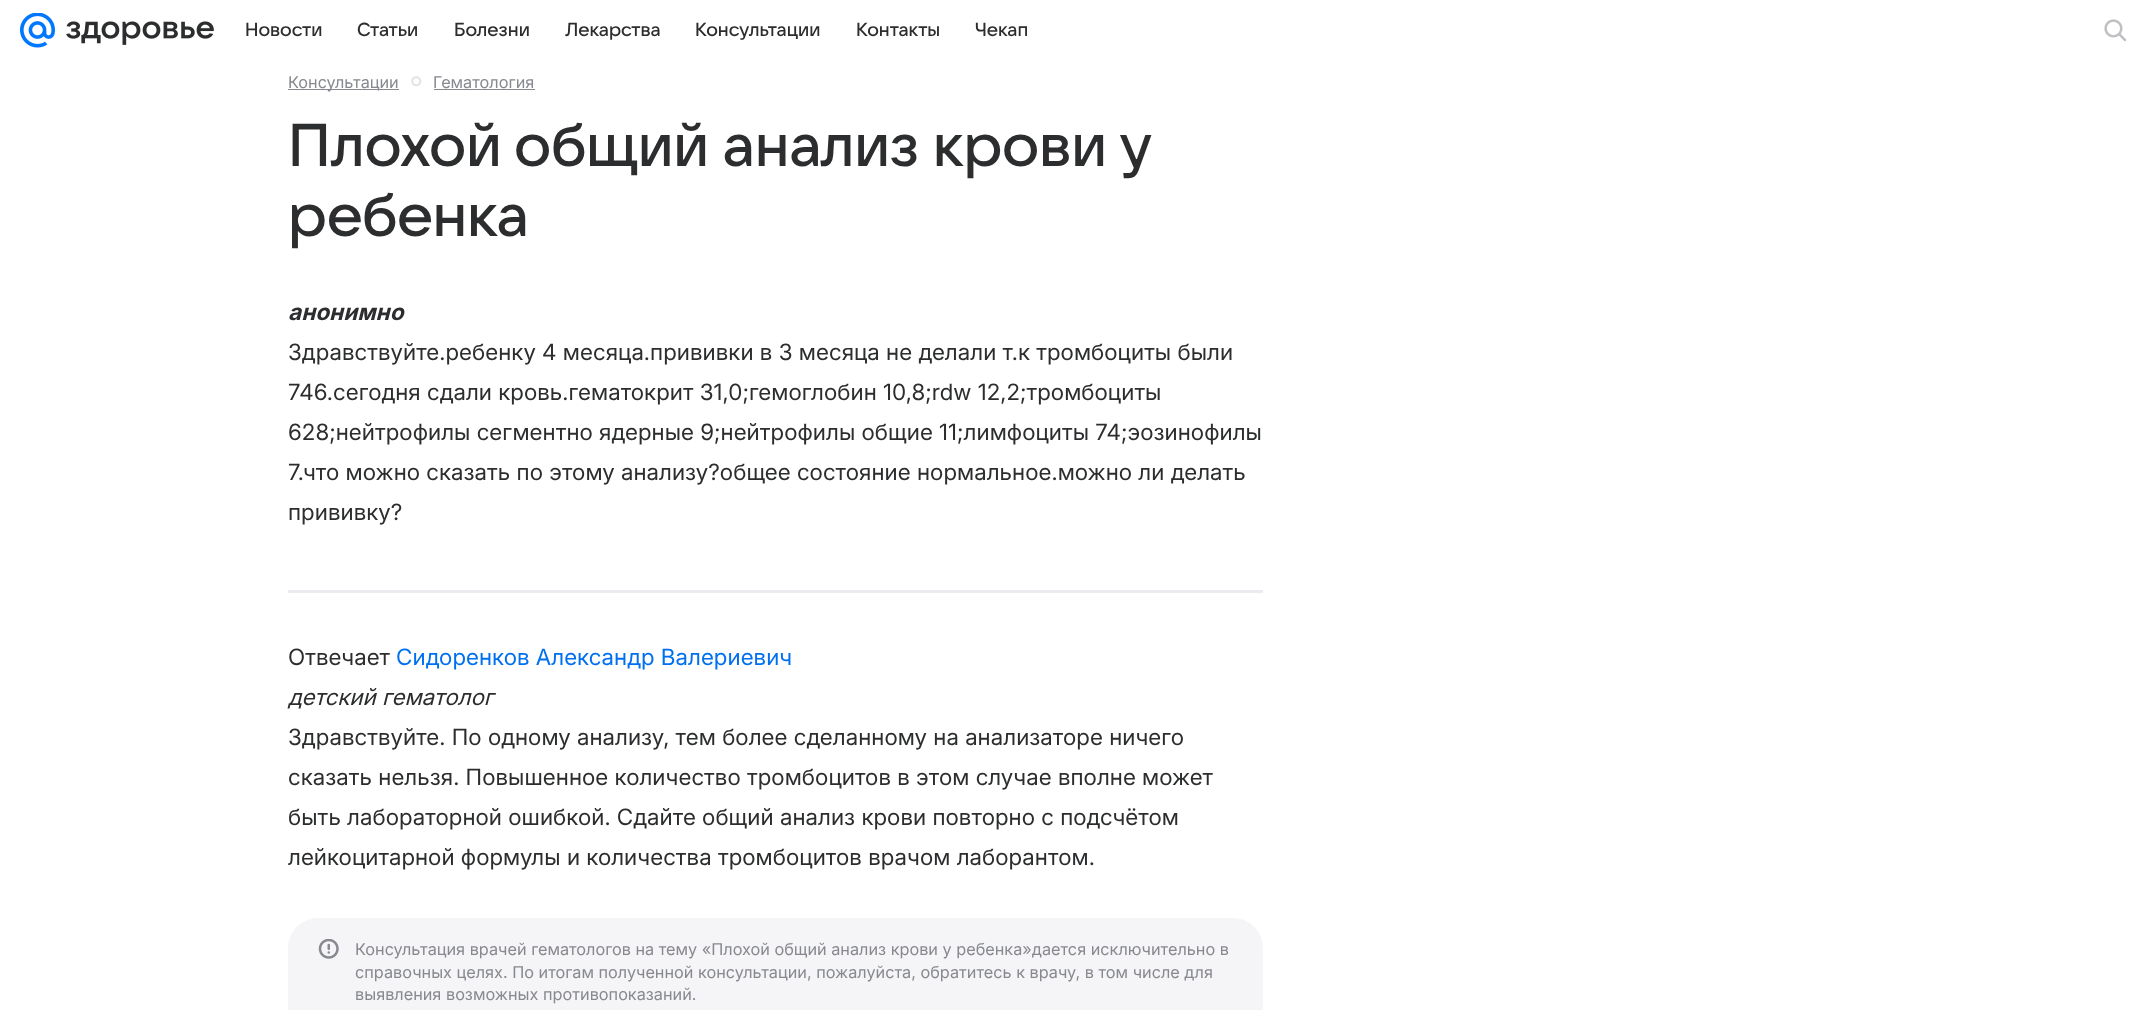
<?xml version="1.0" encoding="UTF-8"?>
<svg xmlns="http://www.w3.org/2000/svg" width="2149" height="1010">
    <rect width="100%" height="100%" fill="#FFFFFF"/>
    <image x="20" y="13" width="35" height="35" href="img_01.png"/>
    <image x="66" y="21" width="148" height="24" href="img_02.png"/>
    <text x="245" y="36" font-family="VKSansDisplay" font-size="18.75" font-weight="500" fill="#2C2D2E">Новости</text>
    <text x="357" y="36" font-family="VKSansDisplay" font-size="18.75" font-weight="500" fill="#2C2D2E">Статьи</text>
    <text x="454" y="36" font-family="VKSansDisplay" font-size="18.75" font-weight="500" fill="#2C2D2E">Болезни</text>
    <text x="565" y="36" font-family="VKSansDisplay" font-size="18.75" font-weight="500" fill="#2C2D2E">Лекарства</text>
    <text x="695" y="36" font-family="VKSansDisplay" font-size="18.75" font-weight="500" fill="#2C2D2E">Консультации</text>
    <text x="856" y="36" font-family="VKSansDisplay" font-size="18.75" font-weight="500" fill="#2C2D2E">Контакты</text>
    <text x="975" y="36" font-family="VKSansDisplay" font-size="18.75" font-weight="500" fill="#2C2D2E">Чекап</text>
    <image x="2104" y="19" width="23" height="23" href="img_03.png"/>
    <rect x="288" y="89" width="111" height="1" fill="#87898F"/>
    <text x="288" y="88" font-family="'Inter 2'" font-size="16.25" fill="#87898F">Консультации</text>
    <image x="411" y="76" width="11" height="11" href="img_04.png"/>
    <text x="433" y="88" font-family="'Inter 2'" font-size="16.25" fill="#87898F">Гематология</text>
    <rect x="434" y="89" width="101" height="1" fill="#87898F"/>
    <text font-family="VKSansDisplay" font-size="60" font-weight="500" letter-spacing="-0.3" fill="#2C2D2E">
        <tspan x="288" y="166" word-spacing="-0.5">Плохой общий анализ крови у</tspan>
        <tspan x="288" y="236">ребенка</tspan>
    </text>
    <text x="288" y="320" font-family="Inter" font-size="22.5" font-weight="700" font-style="italic" letter-spacing="0.07" fill="#2C2D2E">анонимно</text>
    <text font-family="Inter" font-size="22.5" letter-spacing="0.07" fill="#2C2D2E">
        <tspan x="288" y="360">Здравствуйте.ребенку 4 месяца.прививки в 3 месяца не делали т.к тромбоциты были</tspan>
        <tspan x="288" y="400">746.сегодня сдали кровь.гематокрит 31,0;гемоглобин 10,8;rdw 12,2;тромбоциты</tspan>
        <tspan x="288" y="440">628;нейтрофилы сегментно ядерные 9;нейтрофилы общие 11;лимфоциты 74;эозинофилы</tspan>
        <tspan x="288" y="480">7.что можно сказать по этому анализу?общее состояние нормальное.можно ли делать</tspan>
        <tspan x="288" y="520">прививку?</tspan>
    </text>
    <rect x="288" y="590" width="975" height="3" fill="#EBECEF"/>
    <text x="288" y="665" font-family="Inter" font-size="22.5" letter-spacing="0.07" fill="#2C2D2E">Отвечает</text>
    <text x="396" y="665" font-family="Inter" font-size="22.5" letter-spacing="0.07" fill="#0070F0">Сидоренков Александр Валериевич</text>
    <text x="288" y="705" font-family="Inter" font-size="22.5" font-style="italic" letter-spacing="0.07" fill="#2C2D2E">детский гематолог</text>
    <text font-family="Inter" font-size="22.5" letter-spacing="0.07" fill="#2C2D2E">
        <tspan x="288" y="745">Здравствуйте. По одному анализу, тем более сделанному на анализаторе ничего</tspan>
        <tspan x="288" y="785">сказать нельзя. Повышенное количество тромбоцитов в этом случае вполне может</tspan>
        <tspan x="288" y="825">быть лабораторной ошибкой. Сдайте общий анализ крови повторно с подсчётом</tspan>
        <tspan x="288" y="865">лейкоцитарной формулы и количества тромбоцитов врачом лаборантом.</tspan>
    </text>
    <rect x="288" y="918" width="975" height="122" rx="30" fill="#F5F5F7"/>
    <image x="318" y="939" width="21" height="20" href="img_05.png"/>
    <text font-family="'Inter 2'" font-size="16.25" fill="#87898F">
        <tspan x="355" y="955">Консультация врачей гематологов на тему «Плохой общий анализ крови у ребенка»дается исключительно в</tspan>
        <tspan x="355" y="978">справочных целях. По итогам полученной консультации, пожалуйста, обратитесь к врачу, в том числе для</tspan>
        <tspan x="355" y="1000">выявления возможных противопоказаний.</tspan>
    </text>
</svg>
